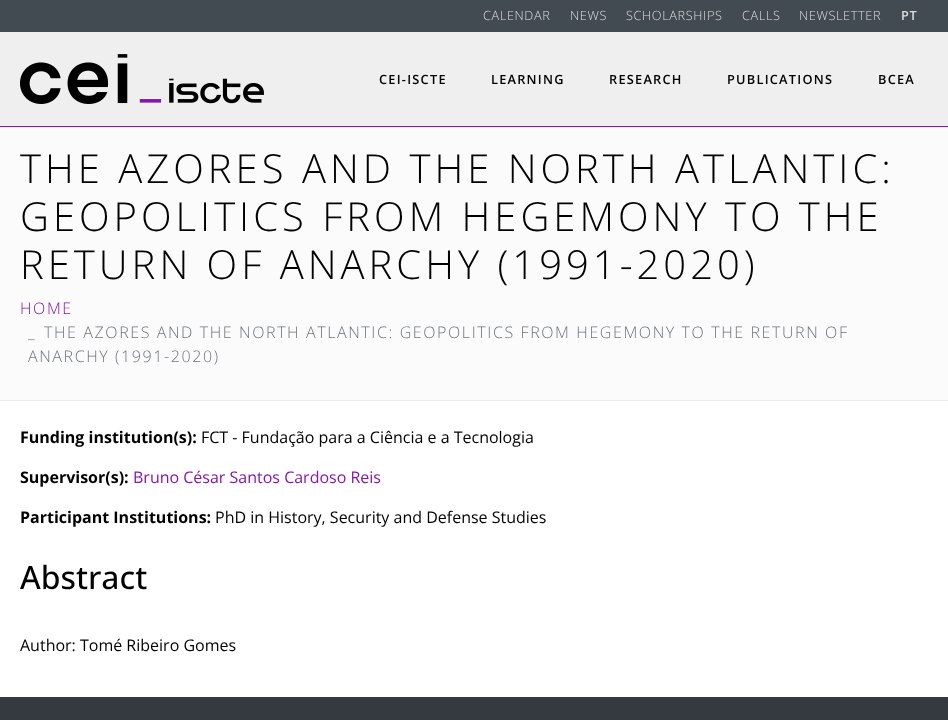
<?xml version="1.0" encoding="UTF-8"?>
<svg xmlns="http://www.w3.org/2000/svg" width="948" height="720">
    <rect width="100%" height="100%" fill="#343A40"/>
    <rect x="0" y="0" width="948" height="32" fill="#434B52"/>
    <text x="483" y="20" font-family="Open Sans" font-size="12.75" font-weight="300" letter-spacing="0.6" fill="#DDDDDD">CALENDAR</text>
    <text x="570" y="20" font-family="Open Sans" font-size="12.75" font-weight="300" letter-spacing="0.6" fill="#DDDDDD">NEWS</text>
    <text x="626" y="20" font-family="Open Sans" font-size="12.75" font-weight="300" letter-spacing="0.6" fill="#DDDDDD">SCHOLARSHIPS</text>
    <text x="742" y="20" font-family="Open Sans" font-size="12.75" font-weight="300" letter-spacing="0.6" fill="#DDDDDD">CALLS</text>
    <text x="799" y="20" font-family="Open Sans" font-size="12.75" font-weight="300" letter-spacing="0.6" fill="#DDDDDD">NEWSLETTER</text>
    <text x="901" y="20" font-family="Open Sans" font-size="12.75" font-weight="600" letter-spacing="0.6" fill="#DDDDDD">PT</text>
    <rect x="0" y="32" width="948" height="94" fill="#EFEFEF"/>
    <rect x="0" y="126" width="948" height="1" fill="#8517AC"/>
    <image x="20" y="54" width="244" height="50" href="img_01.png"/>
    <text x="379" y="84" font-family="Open Sans" font-size="12.75" font-weight="600" letter-spacing="1.25" fill="#000000">CEI-ISCTE</text>
    <text x="491" y="84" font-family="Open Sans" font-size="12.75" font-weight="600" letter-spacing="1.25" fill="#000000">LEARNING</text>
    <text x="609" y="84" font-family="Open Sans" font-size="12.75" font-weight="600" letter-spacing="1.25" fill="#000000">RESEARCH</text>
    <text x="727" y="84" font-family="Open Sans" font-size="12.75" font-weight="600" letter-spacing="1.25" fill="#000000">PUBLICATIONS</text>
    <text x="878" y="84" font-family="Open Sans" font-size="12.75" font-weight="600" letter-spacing="1.25" fill="#000000">BCEA</text>
    <rect x="0" y="401" width="948" height="296" fill="#FFFFFF"/>
    <rect x="0" y="128" width="948" height="272" fill="#FBFBFB"/>
    <rect x="0" y="127" width="948" height="1" fill="#EBEBEB"/>
    <rect x="0" y="400" width="948" height="1" fill="#EBEBEB"/>
    <text font-family="Open Sans" font-size="40" font-weight="300" letter-spacing="4" fill="#000000">
        <tspan x="20" y="183">THE AZORES AND THE NORTH ATLANTIC:</tspan>
        <tspan x="20" y="231">GEOPOLITICS FROM HEGEMONY TO THE</tspan>
        <tspan x="20" y="279">RETURN OF ANARCHY (1991-2020)</tspan>
    </text>
    <text x="20" y="314" font-family="Open Sans" font-size="16" font-weight="300" letter-spacing="1.6" fill="#8517AC">HOME</text>
    <text x="44" y="338" font-family="Open Sans" font-size="16" font-weight="300" letter-spacing="1.6" fill="#6C757D">THE AZORES AND THE NORTH ATLANTIC: GEOPOLITICS FROM HEGEMONY TO THE RETURN OF</text>
    <text font-family="Open Sans" font-size="16" font-weight="300" letter-spacing="1.6" fill="#6C757D">
        <tspan x="28" y="338">_</tspan>
        <tspan x="28" y="362">ANARCHY (1991-2020)</tspan>
    </text>
    <text x="20" y="443" font-family="Open Sans" font-size="16" font-weight="700" fill="#000000">Funding institution(s):</text>
    <text x="201" y="443" font-family="Open Sans" font-size="16" fill="#000000">FCT - Fundação para a Ciência e a Tecnologia</text>
    <text x="20" y="483" font-family="Open Sans" font-size="16" font-weight="700" fill="#000000">Supervisor(s):</text>
    <text x="133" y="483" font-family="Open Sans" font-size="16" fill="#8517AC">Bruno César Santos Cardoso Reis</text>
    <text x="20" y="523" font-family="Open Sans" font-size="16" font-weight="700" fill="#000000">Participant Institutions:</text>
    <text x="215" y="523" font-family="Open Sans" font-size="16" fill="#000000">PhD in History, Security and Defense Studies</text>
    <text x="20" y="589" font-family="Open Sans" font-size="32" font-weight="500" fill="#000000">Abstract</text>
    <text x="20" y="651" font-family="Open Sans" font-size="16" fill="#000000">Author: Tomé Ribeiro Gomes</text>
</svg>
